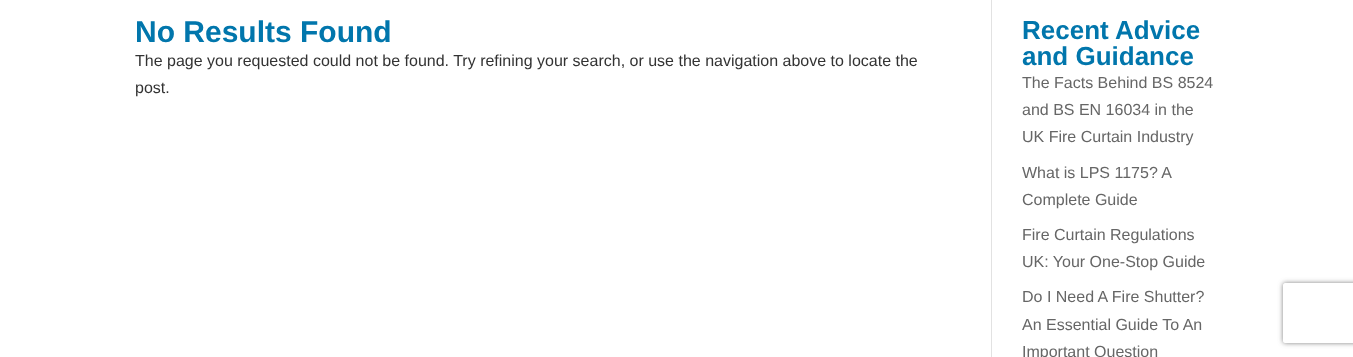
<?xml version="1.0" encoding="UTF-8"?>
<svg xmlns="http://www.w3.org/2000/svg" width="1353" height="357">
    <defs>
        <clipPath id="clip1"><path d="M 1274 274 H 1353 V 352 H 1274 Z M 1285 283 H 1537 C 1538 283 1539 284 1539 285 V 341 C 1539 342 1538 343 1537 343 H 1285 C 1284 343 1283 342 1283 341 V 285 C 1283 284 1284 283 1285 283 Z" clip-rule="evenodd"/></clipPath>
        <filter id="blur1" x="-50%" y="-200%" width="200%" height="500%"><feGaussianBlur stdDeviation="2.5"/></filter>
    </defs>
    <rect width="100%" height="100%" fill="#FFFFFF"/>
    <rect x="991" y="0" width="1" height="357" fill="#E2E2E2"/>
    <text x="135" y="42" font-family="Liberation Sans" font-size="30" font-weight="700" fill="#0176AC">No Results Found</text>
    <text font-family="Liberation Sans" font-size="16" fill="#333333">
        <tspan x="135" y="66">The page you requested could not be found. Try refining your search, or use the navigation above to locate the</tspan>
        <tspan x="135" y="93">post.</tspan>
    </text>
    <text font-family="Liberation Sans" font-size="26" font-weight="700" fill="#0176AC">
        <tspan x="1022" y="39">Recent Advice</tspan>
        <tspan x="1022" y="65">and Guidance</tspan>
    </text>
    <text font-family="Liberation Sans" font-size="16" fill="#666666">
        <tspan x="1022" y="88">The Facts Behind BS 8524</tspan>
        <tspan x="1022" y="115">and BS EN 16034 in the</tspan>
        <tspan x="1022" y="142">UK Fire Curtain Industry</tspan>
    </text>
    <text font-family="Liberation Sans" font-size="16" fill="#666666">
        <tspan x="1022" y="178">What is LPS 1175? A</tspan>
        <tspan x="1022" y="205">Complete Guide</tspan>
    </text>
    <text font-family="Liberation Sans" font-size="16" fill="#666666">
        <tspan x="1022" y="240">Fire Curtain Regulations</tspan>
        <tspan x="1022" y="267">UK: Your One-Stop Guide</tspan>
    </text>
    <text font-family="Liberation Sans" font-size="16" fill="#666666">
        <tspan x="1022" y="302">Do I Need A Fire Shutter?</tspan>
        <tspan x="1022" y="330">An Essential Guide To An</tspan>
        <tspan x="1022" y="357">Important Question</tspan>
    </text>
    <g clip-path="url(#clip1)">
        <rect x="1283" y="283" width="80" height="60" rx="2" fill="#808080" filter="url(#blur1)"/>
    </g>
</svg>
